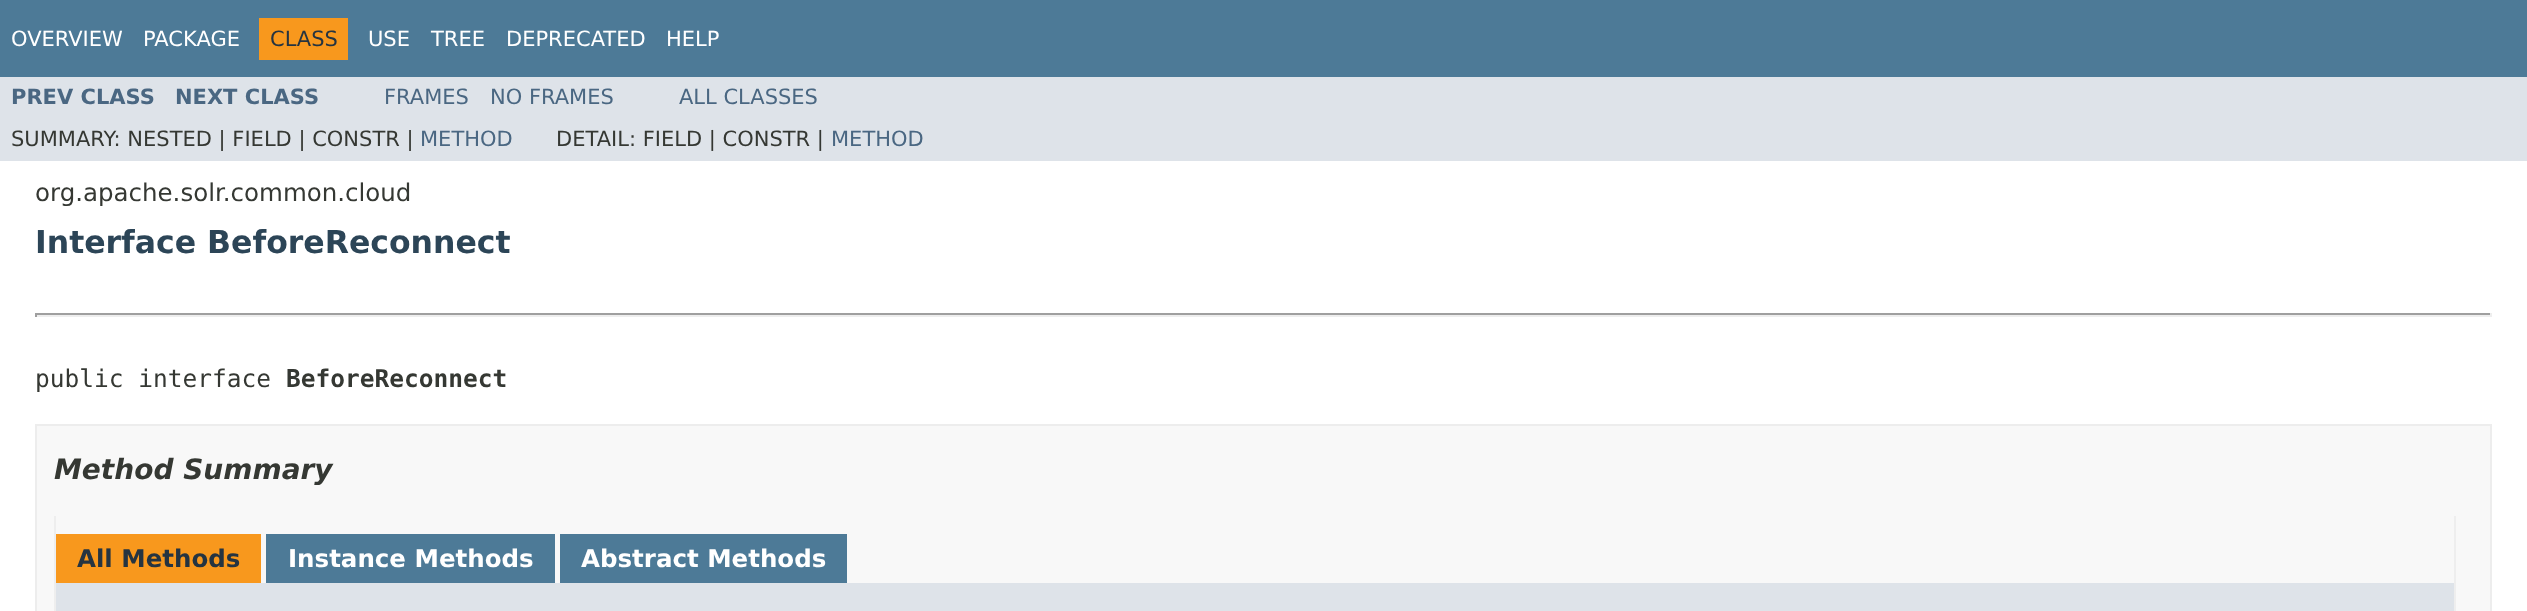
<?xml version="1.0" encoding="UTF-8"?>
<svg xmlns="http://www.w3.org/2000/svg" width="2527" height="611">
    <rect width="100%" height="100%" fill="#FFFFFF"/>
    <rect x="0" y="0" width="2527" height="77" fill="#4D7A97"/>
    <text x="11" y="46" font-family="DejaVu Sans" font-size="21" fill="#FFFFFF">OVERVIEW</text>
    <text x="143" y="46" font-family="DejaVu Sans" font-size="21" fill="#FFFFFF">PACKAGE</text>
    <rect x="259" y="18" width="89" height="42" fill="#F8981D"/>
    <text x="270" y="46" font-family="DejaVu Sans" font-size="21" fill="#253441">CLASS</text>
    <text x="368" y="46" font-family="DejaVu Sans" font-size="21" fill="#FFFFFF">USE</text>
    <text x="431" y="46" font-family="DejaVu Sans" font-size="21" fill="#FFFFFF">TREE</text>
    <text x="506" y="46" font-family="DejaVu Sans" font-size="21" fill="#FFFFFF">DEPRECATED</text>
    <text x="666" y="46" font-family="DejaVu Sans" font-size="21" fill="#FFFFFF">HELP</text>
    <rect x="0" y="77" width="2527" height="84" fill="#DEE3E9"/>
    <text x="11" y="104" font-family="DejaVu Sans" font-size="21" font-weight="700" fill="#4A6782">PREV CLASS</text>
    <text x="175" y="104" font-family="DejaVu Sans" font-size="21" font-weight="700" fill="#4A6782">NEXT CLASS</text>
    <text x="384" y="104" font-family="DejaVu Sans" font-size="21" fill="#4A6782">FRAMES</text>
    <text x="490" y="104" font-family="DejaVu Sans" font-size="21" fill="#4A6782">NO FRAMES</text>
    <text x="679" y="104" font-family="DejaVu Sans" font-size="21" fill="#4A6782">ALL CLASSES</text>
    <text x="11" y="146" font-family="DejaVu Sans" font-size="21" fill="#353833">SUMMARY: NESTED | FIELD | CONSTR |</text>
    <text x="420" y="146" font-family="DejaVu Sans" font-size="21" fill="#4A6782">METHOD</text>
    <text x="556" y="146" font-family="DejaVu Sans" font-size="21" fill="#353833">DETAIL: FIELD | CONSTR |</text>
    <text x="831" y="146" font-family="DejaVu Sans" font-size="21" fill="#4A6782">METHOD</text>
    <text x="35" y="201" font-family="DejaVu Sans" font-size="24.5" fill="#353833">org.apache.solr.common.cloud</text>
    <text x="35" y="253" font-family="DejaVu Sans" font-size="31.5" font-weight="700" fill="#2C4557">Interface BeforeReconnect</text>
    <rect x="35" y="313" width="2457" height="2" fill="#9F9F9F"/>
    <rect x="2490" y="313" width="2" height="4" fill="#EEEEEE"/>
    <rect x="35" y="315" width="2457" height="2" fill="#EEEEEE"/>
    <rect x="35" y="313" width="2" height="4" fill="#9F9F9F"/>
    <text x="35" y="387" font-family="DejaVu Sans Mono" font-size="24.5" fill="#353833">public interface</text>
    <text x="286" y="387" font-family="DejaVu Sans Mono" font-size="24.5" font-weight="700" fill="#353833">BeforeReconnect</text>
    <rect x="36" y="425" width="2455" height="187" fill="#F8F8F8" stroke="#EDEDED" stroke-width="2"/>
    <text x="54" y="479" font-family="DejaVu Sans" font-size="28" font-weight="700" font-style="italic" fill="#353833">Method Summary</text>
    <rect x="2454" y="516" width="2" height="95" fill="#EEEEEE"/>
    <rect x="54" y="516" width="2" height="95" fill="#EEEEEE"/>
    <rect x="56" y="534" width="205" height="49" fill="#F8981D"/>
    <text x="77" y="567" font-family="DejaVu Sans" font-size="24.5" font-weight="700" fill="#253441">All Methods</text>
    <rect x="266" y="534" width="289" height="49" fill="#4D7A97"/>
    <text x="288" y="567" font-family="DejaVu Sans" font-size="24.5" font-weight="700" fill="#FFFFFF">Instance Methods</text>
    <rect x="560" y="534" width="287" height="49" fill="#4D7A97"/>
    <text x="581" y="567" font-family="DejaVu Sans" font-size="24.5" font-weight="700" fill="#FFFFFF">Abstract Methods</text>
    <rect x="56" y="583" width="2398" height="28" fill="#DEE3E9"/>
</svg>
